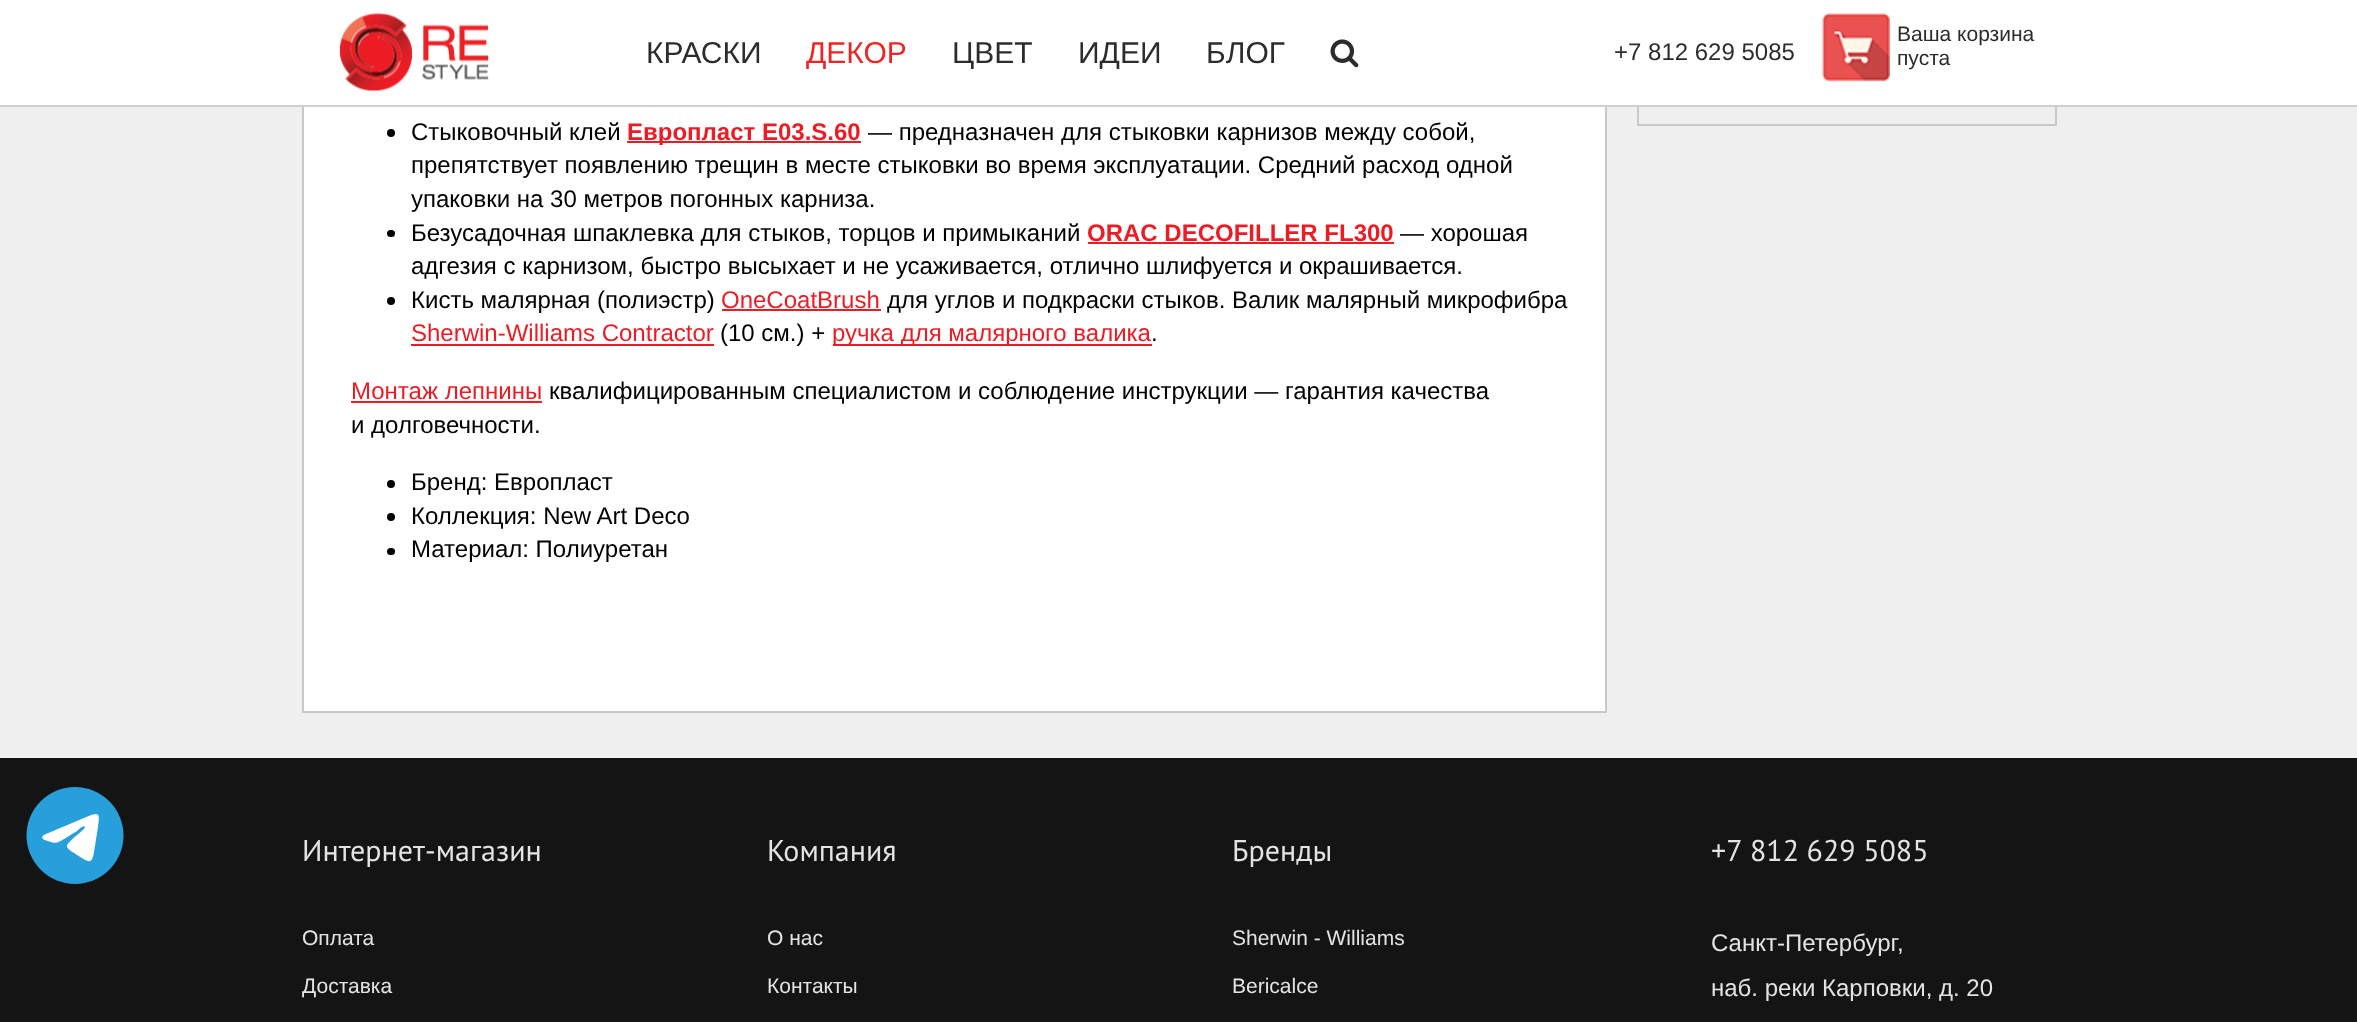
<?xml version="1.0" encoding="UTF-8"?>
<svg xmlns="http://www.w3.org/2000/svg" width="2357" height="1022">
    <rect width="100%" height="100%" fill="#EFEFEF"/>
    <rect x="1638" y="-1" width="418" height="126" fill="none" stroke="#C9C9C9" stroke-width="2"/>
    <rect x="304" y="107" width="1301" height="604" fill="#FFFFFF"/>
    <rect x="303" y="-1" width="1303" height="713" fill="none" stroke="#C8C8C8" stroke-width="2"/>
    <rect x="0" y="0" width="2357" height="105" fill="#FFFFFF"/>
    <rect x="0" y="105" width="2357" height="2" fill="#D0D0D0"/>
    <image x="339" y="13" width="150" height="79" href="img_01.png"/>
    <text x="646" y="63" font-family="Liberation Sans" font-size="30" fill="#2B2D2D">КРАСКИ</text>
    <text x="806" y="63" font-family="Liberation Sans" font-size="30" fill="#EC2525">ДЕКОР</text>
    <text x="952" y="63" font-family="Liberation Sans" font-size="30" fill="#2B2D2D">ЦВЕТ</text>
    <text x="1078" y="63" font-family="Liberation Sans" font-size="30" fill="#2B2D2D">ИДЕИ</text>
    <text x="1206" y="63" font-family="Liberation Sans" font-size="30" fill="#2B2D2D">БЛОГ</text>
    <image x="1330" y="39" width="29" height="29" href="img_02.png"/>
    <text x="1614" y="60" font-family="Liberation Sans" font-size="24" fill="#2B2D2D">+7 812 629 5085</text>
    <image x="1822" y="13" width="68" height="69" href="img_03.png"/>
    <text font-family="Liberation Sans" font-size="21" fill="#2B2D2D">
        <tspan x="1897" y="41">Ваша корзина</tspan>
        <tspan x="1897" y="65">пуста</tspan>
    </text>
    <circle cx="391" cy="133" r="4" fill="#000000"/>
    <text x="411" y="140" font-family="Liberation Sans" font-size="24" fill="#000000">Стыковочный клей</text>
    <rect x="627" y="141" width="234" height="2" fill="#ED1C24"/>
    <text x="627" y="140" font-family="Liberation Sans" font-size="24" font-weight="700" fill="#ED1C24">Европласт E03.S.60</text>
    <text x="868" y="140" font-family="Liberation Sans" font-size="24" fill="#000000">— предназначен для стыковки карнизов между собой,</text>
    <text font-family="Liberation Sans" font-size="24" fill="#000000">
        <tspan x="411" y="173">препятствует появлению трещин в месте стыковки во время эксплуатации. Средний расход одной</tspan>
        <tspan x="411" y="207">упаковки на 30 метров погонных карниза.</tspan>
    </text>
    <rect x="387" y="230" width="8" height="7" rx="3.5" fill="#000000"/>
    <text x="411" y="241" font-family="Liberation Sans" font-size="24" fill="#000000">Безусадочная шпаклевка для стыков, торцов и примыканий</text>
    <text x="1087" y="241" font-family="Liberation Sans" font-size="24" font-weight="700" fill="#ED1C24">ORAC DECOFILLER FL300</text>
    <rect x="1088" y="242" width="306" height="2" fill="#ED1C24"/>
    <text x="1400" y="241" font-family="Liberation Sans" font-size="24" fill="#000000">— хорошая</text>
    <text x="411" y="274" font-family="Liberation Sans" font-size="24" fill="#000000">адгезия с карнизом, быстро высыхает и не усаживается, отлично шлифуется и окрашивается.</text>
    <circle cx="391" cy="301" r="4" fill="#000000"/>
    <text x="411" y="308" font-family="Liberation Sans" font-size="24" fill="#000000">Кисть малярная (полиэстр)</text>
    <text x="721" y="308" font-family="Liberation Sans" font-size="24" fill="#ED1C24">OneCoatBrush</text>
    <rect x="722" y="309" width="159" height="2" fill="#ED1C24"/>
    <text x="887" y="308" font-family="Liberation Sans" font-size="24" fill="#000000">для углов и подкраски стыков. Валик малярный микрофибра</text>
    <text x="411" y="341" font-family="Liberation Sans" font-size="24" fill="#ED1C24">Sherwin-Williams Contractor</text>
    <rect x="411" y="344" width="303" height="2" fill="#ED1C24"/>
    <text x="720" y="341" font-family="Liberation Sans" font-size="24" fill="#000000">(10 см.) +</text>
    <rect x="833" y="344" width="319" height="2" fill="#ED1C24"/>
    <text x="832" y="341" font-family="Liberation Sans" font-size="24" fill="#ED1C24">ручка для малярного валика</text>
    <text x="1151" y="341" font-family="Liberation Sans" font-size="24" fill="#000000">.</text>
    <text x="351" y="399" font-family="Liberation Sans" font-size="24" fill="#ED1C24">Монтаж лепнины</text>
    <rect x="351" y="401" width="191" height="2" fill="#ED1C24"/>
    <text x="549" y="399" font-family="Liberation Sans" font-size="24" fill="#000000">квалифицированным специалистом и соблюдение инструкции — гарантия качества</text>
    <text x="351" y="433" font-family="Liberation Sans" font-size="24" fill="#000000">и долговечности.</text>
    <circle cx="391" cy="484" r="4" fill="#000000"/>
    <text x="411" y="490" font-family="Liberation Sans" font-size="24" fill="#000000">Бренд: Европласт</text>
    <circle cx="391" cy="517" r="4" fill="#000000"/>
    <text x="411" y="524" font-family="Liberation Sans" font-size="24" fill="#000000">Коллекция: New Art Deco</text>
    <rect x="387" y="548" width="8" height="7" rx="3.5" fill="#000000"/>
    <text x="411" y="557" font-family="Liberation Sans" font-size="24" fill="#000000">Материал: Полиуретан</text>
    <rect x="0" y="758" width="2357" height="264" fill="#141414"/>
    <circle cx="75" cy="835.5" r="48.5" fill="#279FDA"/>
    <path d="M 46 834 L 84 818 C 87 817 92 814 96 814 C 101 814 98 824 98 827 L 95 846 C 94 849 94 863 88 861 C 84 860 81 857 77 855 C 75 853 68 850 67 847 C 65 843 86 829 85 827 C 84 824 78 830 77 831 L 64 839 C 58 843 55 844 48 841 C 43 840 39 837 46 834 Z" fill="#FFFFFF"/>
    <text x="302" y="861" font-family="PT Sans" font-size="30" fill="#E3E3E3">Интернет-магазин</text>
    <text x="302" y="945" font-family="Liberation Sans" font-size="21" fill="#E3E3E3">Оплата</text>
    <text x="302" y="993" font-family="Liberation Sans" font-size="21" fill="#E3E3E3">Доставка</text>
    <text x="767" y="861" font-family="PT Sans" font-size="30" fill="#E3E3E3">Компания</text>
    <text x="767" y="945" font-family="Liberation Sans" font-size="21" fill="#E3E3E3">О нас</text>
    <text x="767" y="993" font-family="Liberation Sans" font-size="21" fill="#E3E3E3">Контакты</text>
    <text x="1232" y="861" font-family="PT Sans" font-size="30" fill="#E3E3E3">Бренды</text>
    <text x="1232" y="945" font-family="Liberation Sans" font-size="21" fill="#E3E3E3">Sherwin - Williams</text>
    <text x="1232" y="993" font-family="Liberation Sans" font-size="21" fill="#E3E3E3">Bericalce</text>
    <text x="1711" y="861" word-spacing="-0.5" font-family="PT Sans" font-size="30" fill="#E3E3E3">+7 812 629 5085</text>
    <text x="1711" y="951" font-family="Liberation Sans" font-size="24" fill="#E3E3E3">Санкт-Петербург</text>
    <text x="1897" y="951" font-family="Liberation Sans" font-size="24" fill="#E3E3E3">,</text>
    <text x="1711" y="996" font-family="Liberation Sans" font-size="24" fill="#E3E3E3">наб. реки Карповки, д. 20</text>
</svg>
